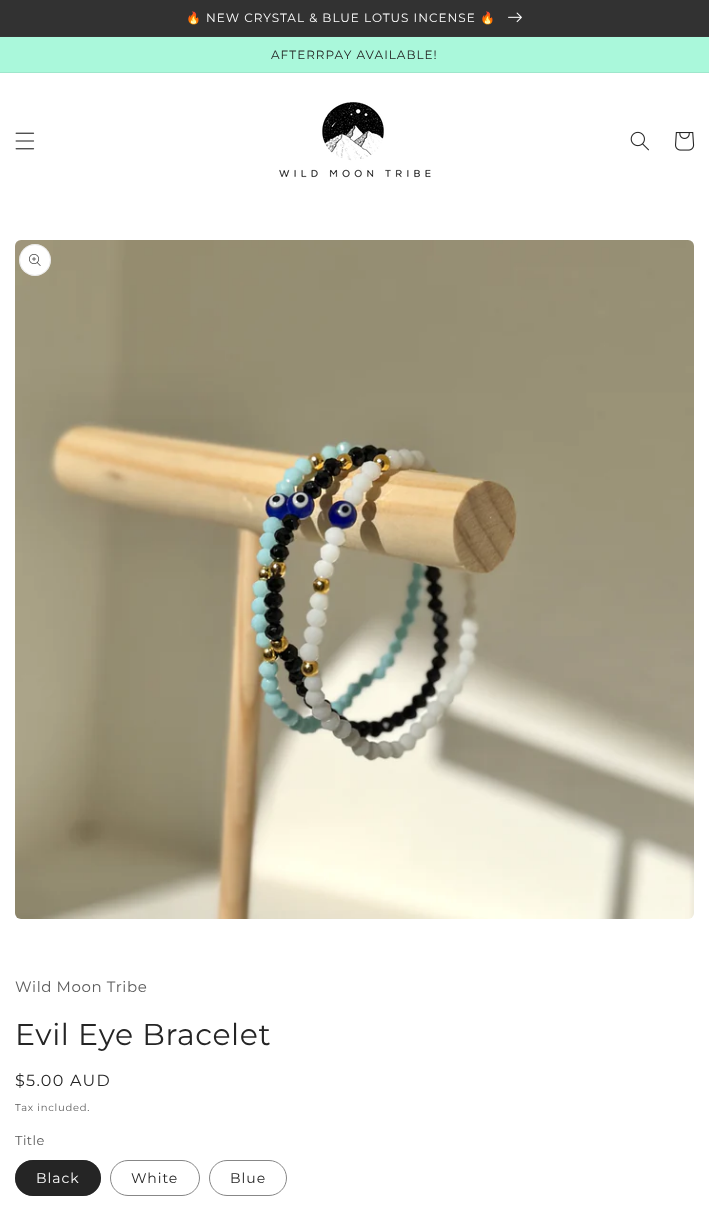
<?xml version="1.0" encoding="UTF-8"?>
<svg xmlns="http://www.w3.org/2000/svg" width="709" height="1207">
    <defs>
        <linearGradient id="g1" gradientUnits="userSpaceOnUse" x1="-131" y1="1072" x2="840" y2="135"><stop offset="0.04" stop-color="#3485EC"/><stop offset="0.05" stop-color="#AAF8DB"/></linearGradient>
    </defs>
    <rect width="100%" height="100%" fill="#FFFFFF"/>
    <rect x="0" y="36" width="709" height="1" fill="#363636"/>
    <rect x="0" y="0" width="709" height="36" fill="#323232"/>
    <text x="186" y="22" font-family="Noto Color Emoji" font-size="12" letter-spacing="1" fill="#FFFFFF">🔥</text>
    <text x="206" y="22" font-family="Montserrat" font-size="12" letter-spacing="1" fill="#FFFFFF">NEW CRYSTAL &amp; BLUE LOTUS INCENSE</text>
    <text x="480" y="22" font-family="Noto Color Emoji" font-size="12" letter-spacing="1" fill="#FFFFFF">🔥</text>
    <image x="508" y="12" width="14" height="11" href="img_01.png"/>
    <rect x="0" y="37" width="709" height="35" fill="url(#g1)"/>
    <rect x="0" y="72" width="709" height="1" fill="#9FE7CC"/>
    <text x="271" y="59" font-family="Montserrat" font-size="12" letter-spacing="1" fill="#252525">AFTERRPAY AVAILABLE!</text>
    <image x="15" y="132" width="20" height="18" href="img_02.png"/>
    <image x="279" y="102" width="152" height="76" href="img_03.png"/>
    <image x="630" y="131" width="19" height="20" href="img_04.png"/>
    <image x="675" y="132" width="20" height="19" href="img_05.png"/>
    <image x="15" y="240" width="679" height="679" href="img_06.png"/>
    <circle cx="35" cy="260" r="16" fill="#FFFFFF"/>
    <circle cx="35" cy="260" r="15.5" fill="none" stroke="#252525" stroke-opacity="0.1"/>
    <image x="29" y="254" width="12" height="12" href="img_07.png"/>
    <text x="15" y="992" font-family="Montserrat" font-size="15" letter-spacing="0.6" fill="#5C5C5C">Wild Moon Tribe</text>
    <text x="15" y="1045" font-family="Montserrat" font-size="30" letter-spacing="0.6" fill="#252525">Evil Eye Bracelet</text>
    <text x="15" y="1086" font-family="Montserrat" font-size="16" letter-spacing="1.25" fill="#252525">$5.00 AUD</text>
    <text x="15" y="1111" font-family="Montserrat" font-size="10" letter-spacing="0.75" fill="#5C5C5C">Tax included.</text>
    <text x="15" y="1145" font-family="Montserrat" font-size="13" letter-spacing="0.5" fill="#5C5C5C">Title</text>
    <rect x="15" y="1160" width="86" height="36" rx="18" fill="#252525"/>
    <rect x="15.5" y="1160.5" width="85" height="35" rx="17.5" fill="none" stroke="#252525" stroke-opacity="0.55"/>
    <text x="36" y="1183" font-family="Montserrat" font-size="14" letter-spacing="1" fill="#FFFFFF">Black</text>
    <rect x="110.5" y="1160.5" width="89" height="35" rx="17.5" fill="none" stroke="#878787"/>
    <text x="131" y="1183" font-family="Montserrat" font-size="14" letter-spacing="1" fill="#252525">White</text>
    <rect x="209.5" y="1160.5" width="77" height="35" rx="17.5" fill="none" stroke="#878787"/>
    <text x="230" y="1183" font-family="Montserrat" font-size="14" letter-spacing="1" fill="#252525">Blue</text>
</svg>
